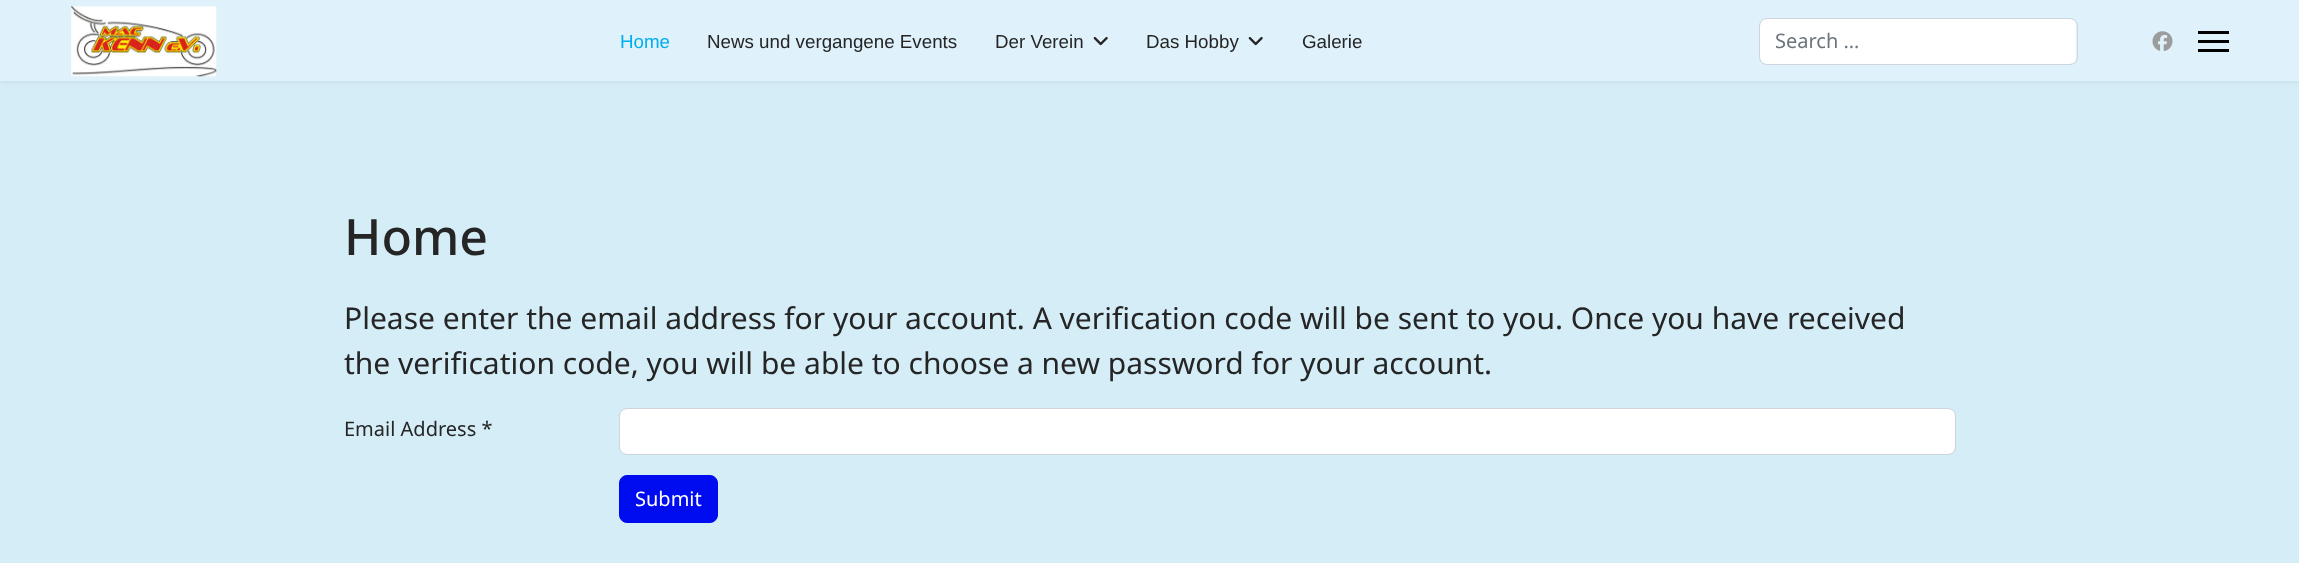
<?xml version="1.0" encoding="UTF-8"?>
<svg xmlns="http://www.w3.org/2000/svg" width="2299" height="563">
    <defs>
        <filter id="blur1" x="-50%" y="-200%" width="200%" height="500%"><feGaussianBlur stdDeviation="2.5"/></filter>
    </defs>
    <rect width="100%" height="100%" fill="#D4EDF7"/>
    <rect x="0" y="0" width="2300" height="81" fill="#000000" fill-opacity="0.1" filter="url(#blur1)"/>
    <rect x="0" y="0" width="2299" height="81" fill="#DFF1FA"/>
    <image x="71" y="6" width="146" height="71" href="img_01.png"/>
    <text x="620" y="48" font-family="Liberation Sans" font-size="18.75" fill="#00AEEF">Home</text>
    <text x="707" y="48" font-family="Liberation Sans" font-size="18.75" fill="#252525">News und vergangene Events</text>
    <text x="995" y="48" font-family="Liberation Sans" font-size="18.75" fill="#252525">Der Verein</text>
    <image x="1093" y="37" width="15" height="9" href="img_02.png"/>
    <text x="1146" y="48" font-family="Liberation Sans" font-size="18.75" fill="#252525">Das Hobby</text>
    <image x="1248" y="37" width="15" height="9" href="img_02.png"/>
    <text x="1302" y="48" font-family="Liberation Sans" font-size="18.75" fill="#252525">Galerie</text>
    <rect x="1760" y="19" width="316" height="45" rx="6" fill="#FFFFFF"/>
    <rect x="1759.5" y="18.5" width="318" height="46" rx="7.5" fill="none" stroke="#CED4DA"/>
    <text x="1775" y="48" font-family="Noto Sans" font-size="20" fill="#6C757D">Search …</text>
    <image x="2152" y="31" width="21" height="20" href="img_03.png"/>
    <rect x="2198" y="31" width="31" height="3" fill="#000000"/>
    <rect x="2198" y="40" width="31" height="3" fill="#000000"/>
    <rect x="2198" y="49" width="31" height="3" fill="#000000"/>
    <text x="344" y="255" font-family="Noto Sans" font-size="50" font-weight="500" fill="#252525">Home</text>
    <text font-family="Noto Sans" font-size="30" fill="#252525">
        <tspan x="344" y="329">Please enter the email address for your account. A verification code will be sent to you. Once you have received</tspan>
        <tspan x="344" y="374">the verification code, you will be able to choose a new password for your account.</tspan>
    </text>
    <text x="344" y="436" font-family="Noto Sans" font-size="20" fill="#252525">Email Address *</text>
    <rect x="620" y="409" width="1335" height="45" rx="6" fill="#FFFFFF"/>
    <rect x="619.5" y="408.5" width="1336" height="46" rx="7.5" fill="none" stroke="#CED4DA"/>
    <rect x="619.5" y="475.5" width="98" height="47" rx="7.5" fill="#000CF0" stroke="#000CF0"/>
    <text x="635" y="506" font-family="Noto Sans" font-size="20" fill="#FFFFFF">Submit</text>
</svg>
